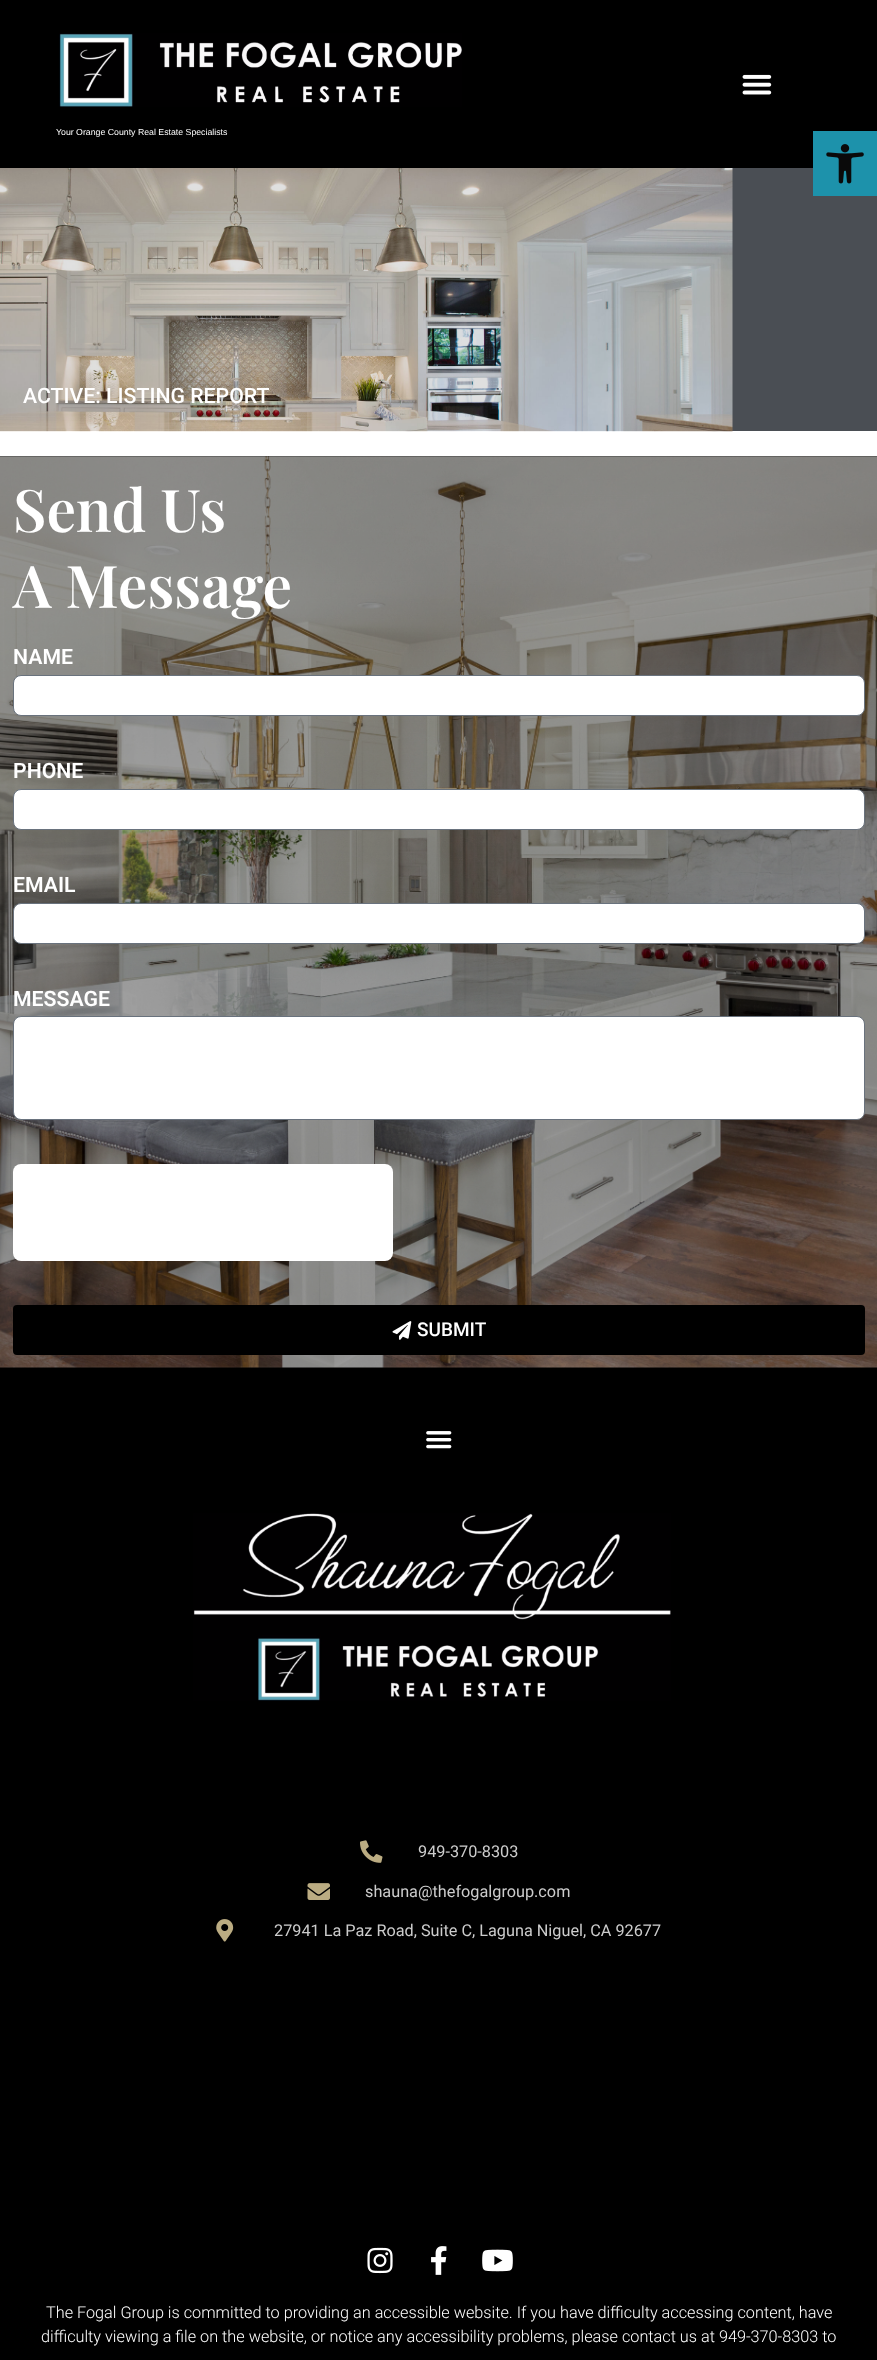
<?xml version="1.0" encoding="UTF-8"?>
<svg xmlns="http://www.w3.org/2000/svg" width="877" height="2360">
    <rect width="100%" height="100%" fill="#FFFFFF"/>
    <rect x="0" y="0" width="877" height="168" fill="#000000"/>
    <image x="742" y="74" width="30" height="21" href="img_01.png"/>
    <image x="59" y="33" width="403" height="74" href="img_02.png"/>
    <text x="56" y="135" font-family="Liberation Sans" font-size="8.75" fill="#FFFFFF">Your Orange County Real Estate Specialists</text>
    <rect x="732" y="168" width="145" height="263" fill="#4A4E54"/>
    <rect x="813" y="131" width="64" height="65" fill="#1D92AB"/>
    <image x="826" y="144" width="38" height="40" href="img_03.png"/>
    <image x="0" y="168" width="733" height="264" href="img_04.png"/>
    <text x="23" y="403" font-family="Roboto" font-size="21.25" font-weight="500" fill="#FFFFFF">ACTIVE: LISTING REPORT</text>
    <rect x="0" y="456" width="877" height="1904" fill="#000000"/>
    <image x="0" y="456" width="877" height="912" href="img_05.png"/>
    <text font-family="Playfair Display" font-size="58.75" font-weight="600" fill="#FFFFFF">
        <tspan x="13" y="532">Send Us</tspan>
        <tspan x="13" y="608">A Message</tspan>
    </text>
    <text x="13" y="664" font-family="Roboto" font-size="21.25" font-weight="600" fill="#FFFFFF">NAME</text>
    <rect x="13.5" y="675.5" width="851" height="40" rx="7.5" fill="#FFFFFF" stroke="#69727D"/>
    <text x="13" y="778" font-family="Roboto" font-size="21.25" font-weight="600" fill="#FFFFFF">PHONE</text>
    <rect x="13.5" y="789.5" width="851" height="40" rx="7.5" fill="#FFFFFF" stroke="#69727D"/>
    <text x="13" y="892" font-family="Roboto" font-size="21.25" font-weight="600" fill="#FFFFFF">EMAIL</text>
    <rect x="13.5" y="903.5" width="851" height="40" rx="7.5" fill="#FFFFFF" stroke="#69727D"/>
    <text x="13" y="1006" font-family="Roboto" font-size="21.25" font-weight="600" fill="#FFFFFF">MESSAGE</text>
    <rect x="13.5" y="1016.5" width="851" height="103" rx="7.5" fill="#FFFFFF" stroke="#69727D"/>
    <rect x="13" y="1164" width="380" height="97" rx="8" fill="#FFFFFF"/>
    <rect x="13" y="1305" width="852" height="50" rx="4" fill="#000000"/>
    <image x="392" y="1321" width="20" height="19" href="img_06.png"/>
    <text x="417" y="1336" font-family="Roboto" font-size="19" font-weight="500" fill="#FFFFFF">SUBMIT</text>
    <image x="426" y="1431" width="26" height="18" href="img_07.png"/>
    <image x="193" y="1513" width="478" height="188" href="img_08.png"/>
    <image x="360" y="1840" width="23" height="23" href="img_09.png"/>
    <text x="418" y="1857" font-family="Roboto" font-size="16.25" fill="#CCCCCC">949-370-8303</text>
    <image x="307" y="1883" width="23" height="17" href="img_10.png"/>
    <text x="365" y="1897" font-family="Roboto" font-size="16.25" fill="#CCCCCC">shauna@thefogalgroup.com</text>
    <image x="216" y="1919" width="18" height="23" href="img_11.png"/>
    <text x="274" y="1936" font-family="Roboto" font-size="16.25" fill="#CCCCCC">27941 La Paz Road, Suite C, Laguna Niguel, CA 92677</text>
    <image x="367" y="2247" width="26" height="27" href="img_12.png"/>
    <image x="431" y="2246" width="16" height="29" href="img_13.png"/>
    <image x="482" y="2249" width="31" height="23" href="img_14.png"/>
    <text x="46" y="2318" font-family="Roboto" font-size="16.25" font-weight="300" fill="#FFFFFF">The Fogal Group is committed to providing an accessible website. If you have difficulty accessing content, have</text>
    <text x="41" y="2342" font-family="Roboto" font-size="16.25" font-weight="300" fill="#FFFFFF">difficulty viewing a file on the website, or notice any accessibility problems, please contact us at 949-370-8303 to</text>
</svg>
